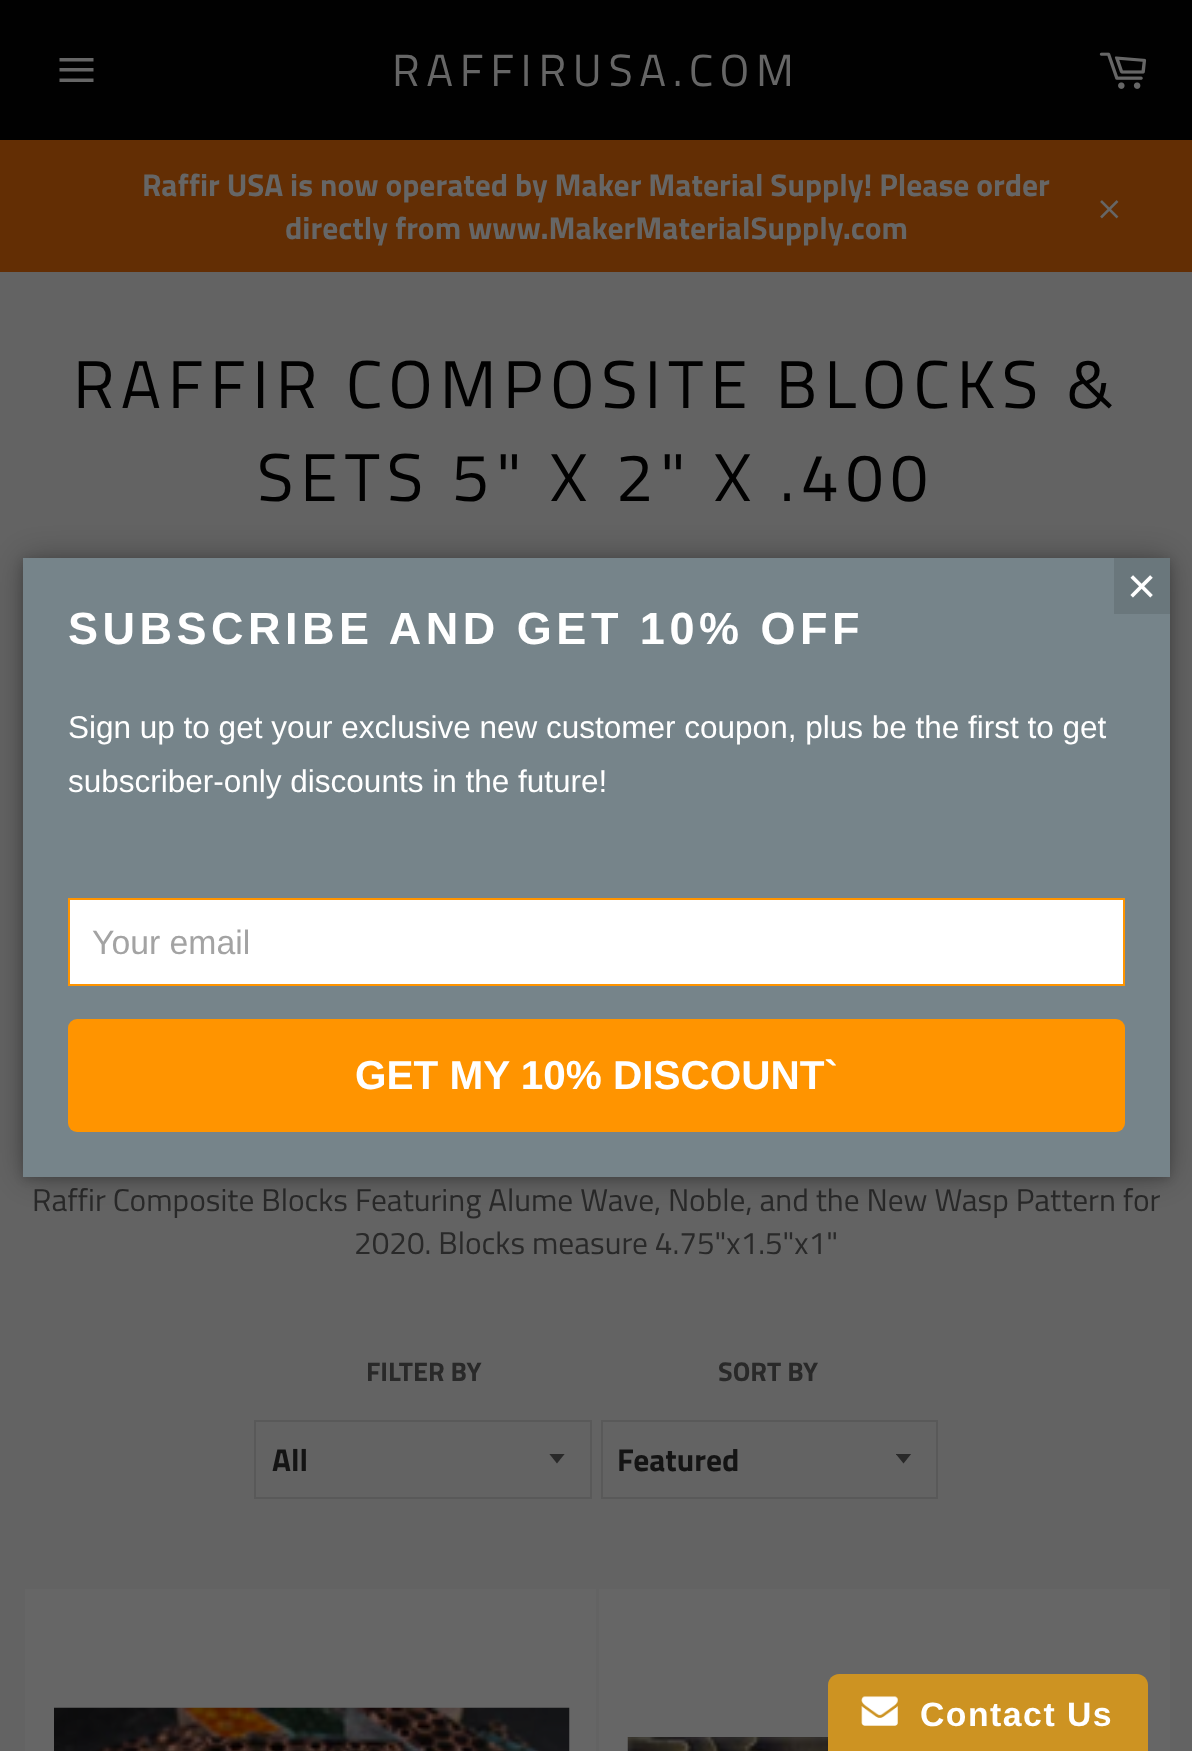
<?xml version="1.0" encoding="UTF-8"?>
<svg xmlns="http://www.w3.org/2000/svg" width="1192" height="1751">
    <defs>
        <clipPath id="clip1"><rect x="549" y="1454" width="18" height="11"/></clipPath>
        <clipPath id="clip2"><rect x="896" y="1454" width="18" height="11"/></clipPath>
        <filter id="blur1" x="-50%" y="-200%" width="200%" height="500%"><feGaussianBlur stdDeviation="5.5"/></filter>
        <filter id="blur2" x="-50%" y="-200%" width="200%" height="500%"><feGaussianBlur stdDeviation="17"/></filter>
    </defs>
    <rect width="100%" height="100%" fill="#636363"/>
    <rect x="0" y="0" width="1192" height="140" fill="#010101"/>
    <path d="M 59.5 68 H 93.5 V 71.5 H 59.5 Z M 59.5 58 H 93.5 V 61.5 H 59.5 Z M 59.5 78.5 H 93.5 V 82 H 59.5 Z" fill="#666666"/>
    <text x="392" y="86" font-family="Titillium Web" font-size="45" letter-spacing="6.75" fill="#666666">RAFFIRUSA.COM</text>
    <image x="1099" y="52" width="48" height="37" href="img_01.png"/>
    <rect x="0" y="140" width="1192" height="132" fill="#632E04"/>
    <text x="142" y="196" font-family="Titillium Web" font-size="31.5" font-weight="700" fill="#666666">Raffir USA is now operated by Maker Material Supply! Please order</text>
    <text x="285" y="239" font-family="Titillium Web" font-size="31.5" font-weight="700" fill="#666666">directly from www.MakerMaterialSupply.com</text>
    <image x="1100" y="200" width="19" height="19" href="img_02.png"/>
    <text x="73" y="408" font-family="Titillium Web" font-size="67.5" letter-spacing="6.75" fill="#010101">RAFFIR COMPOSITE BLOCKS &amp;</text>
    <text x="257" y="501" font-family="Titillium Web" font-size="67.5" letter-spacing="6.75" fill="#010101">SETS 5" X 2" X .400</text>
    <text x="32" y="1211" font-family="Titillium Web" font-size="31.5" fill="#292929">Raffir Composite Blocks Featuring Alume Wave, Noble, and the New Wasp Pattern for</text>
    <text x="354" y="1254" font-family="Titillium Web" font-size="31.5" fill="#292929">2020. Blocks measure 4.75"x1.5"x1"</text>
    <text x="366" y="1381" font-family="Titillium Web" font-size="27" font-weight="700" fill="#292929">FILTER BY</text>
    <g clip-path="url(#clip1)">
        <path d="M 549 1453.5 L 557 1463.5 L 565 1453.5 Z" fill="#292929"/>
    </g>
    <rect x="255" y="1421" width="336" height="77" fill="none" stroke="#595959" stroke-width="2"/>
    <text x="272" y="1471" font-family="Titillium Web" font-size="31.5" font-weight="700" fill="#141414">All</text>
    <text x="718" y="1381" font-family="Titillium Web" font-size="27" font-weight="700" fill="#292929">SORT BY</text>
    <g clip-path="url(#clip2)">
        <path d="M 895.5 1453.5 L 903.5 1463.5 L 911.5 1453.5 Z" fill="#292929"/>
    </g>
    <rect x="602" y="1421" width="335" height="77" fill="none" stroke="#595959" stroke-width="2"/>
    <text x="617" y="1471" font-family="Titillium Web" font-size="31.5" font-weight="700" fill="#141414">Featured</text>
    <rect x="25" y="1589" width="571" height="162" fill="#666666"/>
    <image x="54" y="1707" width="516" height="44" href="img_03.png"/>
    <rect x="599" y="1589" width="571" height="162" fill="#666666"/>
    <image x="627" y="1737" width="201" height="14" href="img_04.png"/>
    <rect x="23" y="560" width="1147" height="619" fill="#000000" fill-opacity="0.2" filter="url(#blur1)"/>
    <rect x="23" y="558" width="1147" height="619" fill="#000000" fill-opacity="0.3" filter="url(#blur2)"/>
    <rect x="23" y="558" width="1147" height="619" fill="#76848A"/>
    <rect x="1114" y="558" width="56" height="56" fill="#6A777C"/>
    <text x="1127" y="603" font-family="Liberation Sans" font-size="50" fill="#FFFFFF">×</text>
    <text x="68" y="644" font-family="Liberation Sans" font-size="45" font-weight="700" letter-spacing="4.5" fill="#FFFFFF">SUBSCRIBE AND GET 10% OFF</text>
    <text font-family="Liberation Sans" font-size="31.5" fill="#FFFFFF">
        <tspan x="68" y="738">Sign up to get your exclusive new customer coupon, plus be the first to get</tspan>
        <tspan x="68" y="792">subscriber-only discounts in the future!</tspan>
    </text>
    <rect x="69" y="899" width="1055" height="86" fill="#FFFFFF" stroke="#FF9400" stroke-width="2"/>
    <text x="92" y="954" font-family="Liberation Sans" font-size="33.75" fill="#A3A3A3">Your email</text>
    <rect x="68" y="1019" width="1057" height="113" rx="9" fill="#FF9400"/>
    <text x="355" y="1089" font-family="Liberation Sans" font-size="40.5" font-weight="700" fill="#FFFFFF">GET MY 10% DISCOUNT`</text>
    <path d="M 839 1674 H 1137 C 1143 1674 1148 1679 1148 1685 V 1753 H 828 V 1685 C 828 1679 833 1674 839 1674 Z" fill="#CD9322"/>
    <image x="861" y="1696" width="37" height="30" href="img_05.png"/>
    <text x="920" y="1726" font-family="Liberation Sans" font-size="33.75" font-weight="700" letter-spacing="1.5" fill="#FFFFFF">Contact Us</text>
</svg>
